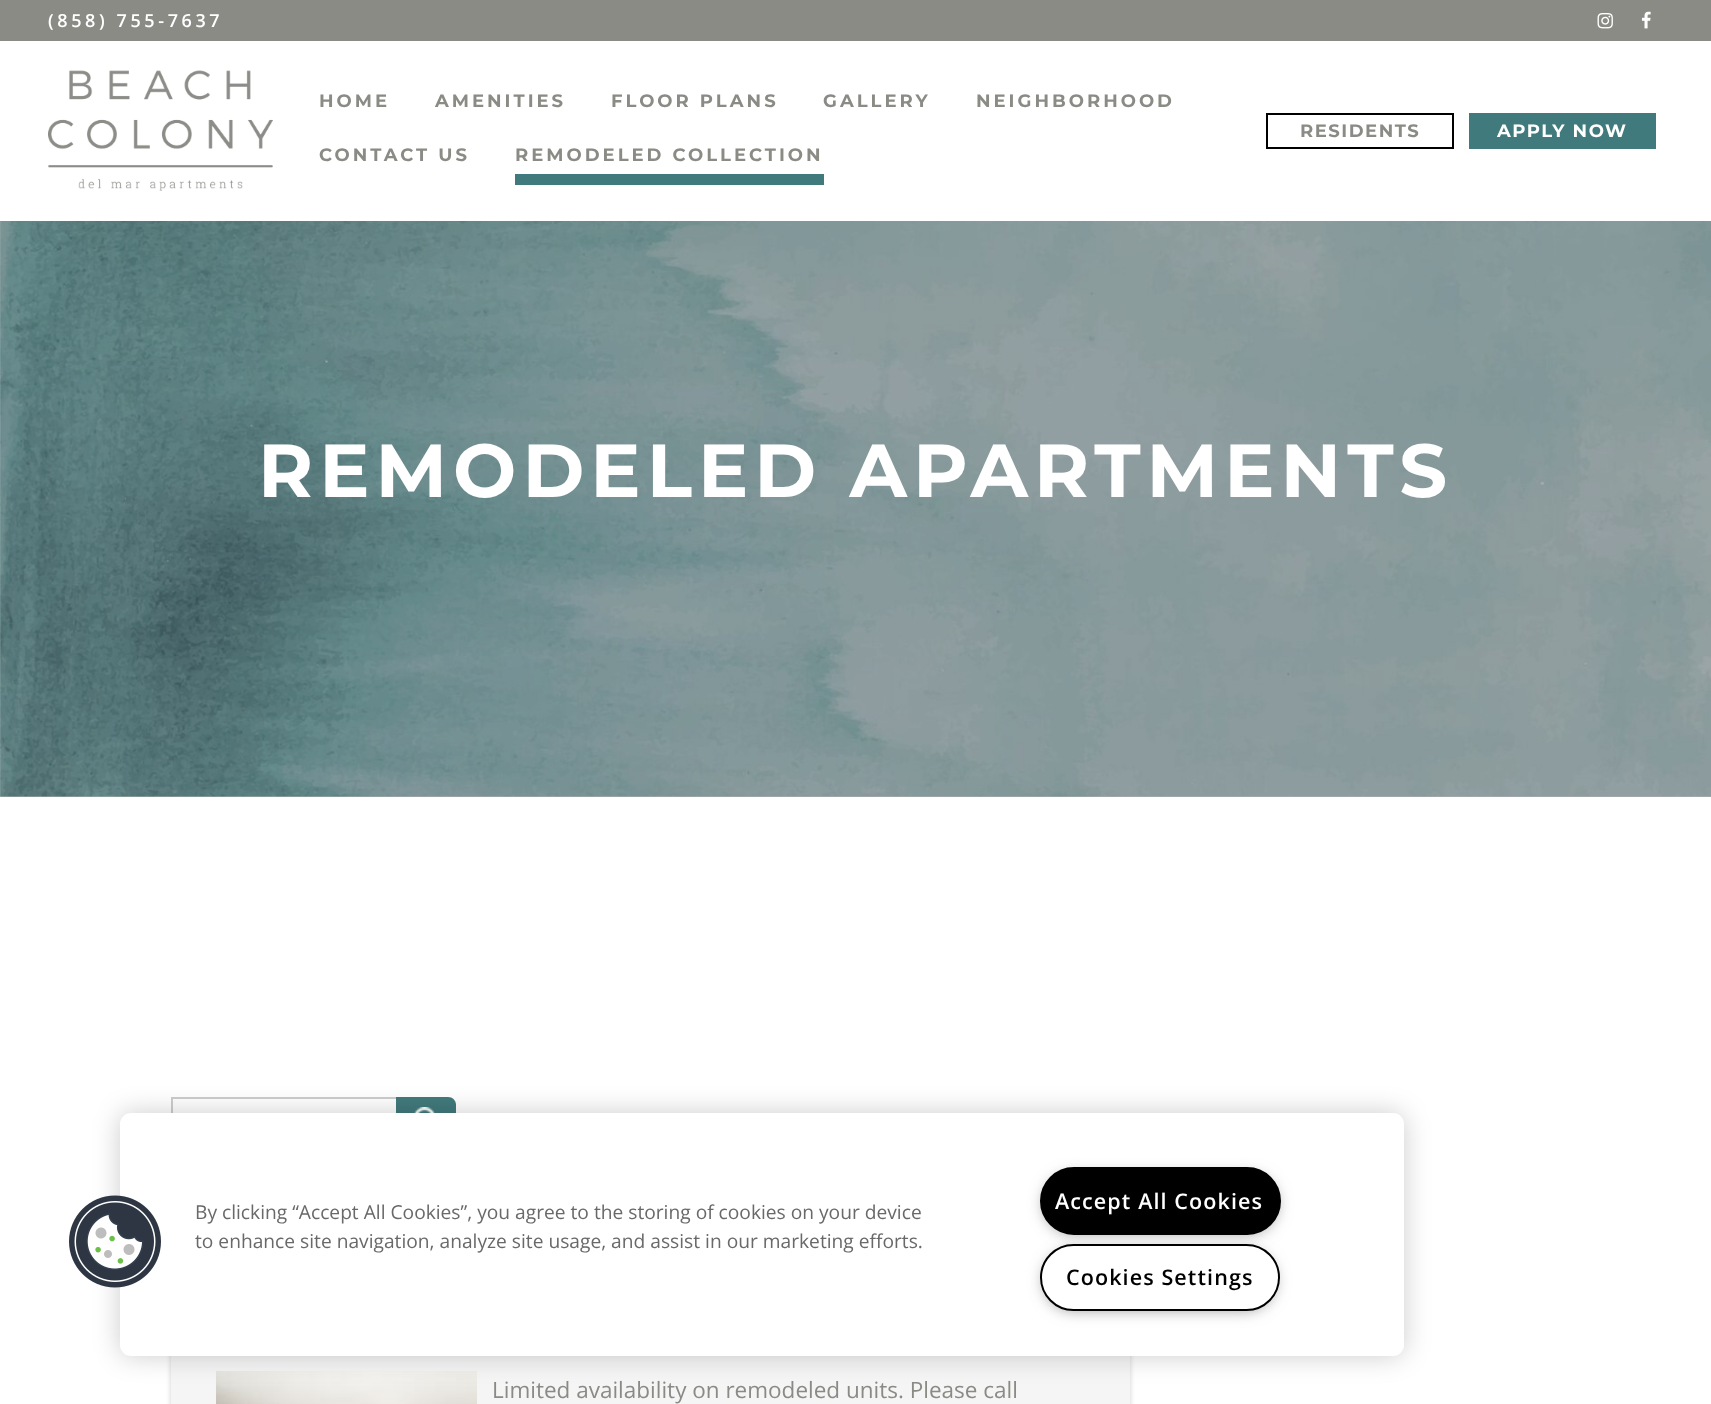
<?xml version="1.0" encoding="UTF-8"?>
<svg xmlns="http://www.w3.org/2000/svg" width="1711" height="1404">
    <defs>
        <filter id="blur1" x="-50%" y="-200%" width="200%" height="500%"><feGaussianBlur stdDeviation="2"/></filter>
        <filter id="blur2" x="-50%" y="-200%" width="200%" height="500%"><feGaussianBlur stdDeviation="13.5"/></filter>
        <filter id="blur3" x="-50%" y="-200%" width="200%" height="500%"><feGaussianBlur stdDeviation="7.5"/></filter>
    </defs>
    <rect width="100%" height="100%" fill="#FFFFFF"/>
    <rect x="0" y="796" width="1711" height="1" fill="#B3B3B3"/>
    <rect x="0" y="0" width="1711" height="41" fill="#8B8B86"/>
    <text x="48" y="27" font-family="Open Sans" font-size="18" font-weight="600" letter-spacing="3.6" fill="#FFFFFF">(858) 755-7637</text>
    <image x="1597" y="13" width="16" height="16" href="img_01.png"/>
    <image x="1641" y="11" width="10" height="18" href="img_02.png"/>
    <image x="48" y="70" width="225" height="121" href="img_03.png"/>
    <text x="319" y="107" font-family="Montserrat" font-size="18" font-weight="700" letter-spacing="3" fill="#8B8B86">HOME</text>
    <text x="435" y="107" font-family="Montserrat" font-size="18" font-weight="700" letter-spacing="3" fill="#8B8B86">AMENITIES</text>
    <text x="611" y="107" font-family="Montserrat" font-size="18" font-weight="700" letter-spacing="3" fill="#8B8B86">FLOOR PLANS</text>
    <text x="823" y="107" font-family="Montserrat" font-size="18" font-weight="700" letter-spacing="3" fill="#8B8B86">GALLERY</text>
    <text x="976" y="107" font-family="Montserrat" font-size="18" font-weight="700" letter-spacing="3" fill="#8B8B86">NEIGHBORHOOD</text>
    <text x="319" y="161" font-family="Montserrat" font-size="18" font-weight="700" letter-spacing="3" fill="#8B8B86">CONTACT US</text>
    <rect x="515" y="174" width="309" height="11" fill="#417A7C"/>
    <text x="515" y="161" font-family="Montserrat" font-size="18" font-weight="700" letter-spacing="3" fill="#8B8B86">REMODELED COLLECTION</text>
    <rect x="1267" y="114" width="186" height="34" fill="none" stroke="#000000" stroke-width="2"/>
    <text x="1300" y="137" font-family="Montserrat" font-size="18" font-weight="700" letter-spacing="1.5" fill="#8B8B86">RESIDENTS</text>
    <rect x="1469" y="113" width="187" height="36" fill="#417A7C"/>
    <text x="1497" y="137" font-family="Montserrat" font-size="18" font-weight="700" letter-spacing="1.5" fill="#FFFFFF">APPLY NOW</text>
    <image x="0" y="221" width="1711" height="576" href="img_04.png"/>
    <text x="258" y="497" font-family="Montserrat" font-size="75" font-weight="700" letter-spacing="6" fill="#FFFFFF">REMODELED APARTMENTS</text>
    <rect x="171" y="1097" width="225" height="2" fill="#CDCDCD"/>
    <rect x="171" y="1097" width="2" height="16" fill="#CDCDCD"/>
    <path d="M 396 1097 H 448 C 452.5 1097 456 1100.5 456 1105 V 1134 C 456 1138.5 452.5 1142 448 1142 H 396 Z" fill="#417A7C"/>
    <image x="414" y="1107" width="22" height="6" href="img_05.png"/>
    <rect x="170" y="1164" width="961" height="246" fill="#DDDDDD" filter="url(#blur1)"/>
    <rect x="171" y="1356" width="959" height="48" fill="#F5F5F5"/>
    <image x="216" y="1371" width="261" height="33" href="img_06.png"/>
    <text x="492" y="1398" font-family="Open Sans" font-size="22.5" fill="#8B8B86">Limited availability on remodeled units. Please call</text>
    <rect x="120" y="1113" width="1284" height="243" rx="11" fill="#000000" fill-opacity="0.2" filter="url(#blur2)"/>
    <rect x="120" y="1113" width="1284" height="243" rx="11" fill="#FFFFFF"/>
    <image x="69" y="1195" width="92" height="93" href="img_07.png"/>
    <text font-family="Open Sans" font-size="19.2" fill="#696969">
        <tspan x="195" y="1219">By clicking “Accept All Cookies”, you agree to the storing of cookies on your device</tspan>
        <tspan x="195" y="1248">to enhance site navigation, analyze site usage, and assist in our marketing efforts.</tspan>
    </text>
    <rect x="1044" y="1175" width="233" height="58" rx="29" fill="#999999" filter="url(#blur3)"/>
    <rect x="1041" y="1168" width="239" height="66" rx="33" fill="#000000" stroke="#000000" stroke-width="2"/>
    <text x="1055" y="1209" font-family="Open Sans" font-size="21.5" font-weight="600" letter-spacing="1.1" fill="#FFFFFF">Accept All Cookies</text>
    <rect x="1044" y="1251" width="231" height="59" rx="29.5" fill="#999999" filter="url(#blur3)"/>
    <rect x="1041" y="1245" width="238" height="65" rx="32.5" fill="#FFFFFF" stroke="#000000" stroke-width="2"/>
    <text x="1066" y="1285" font-family="Open Sans" font-size="21.5" font-weight="600" letter-spacing="1.1" fill="#000000">Cookies Settings</text>
</svg>
